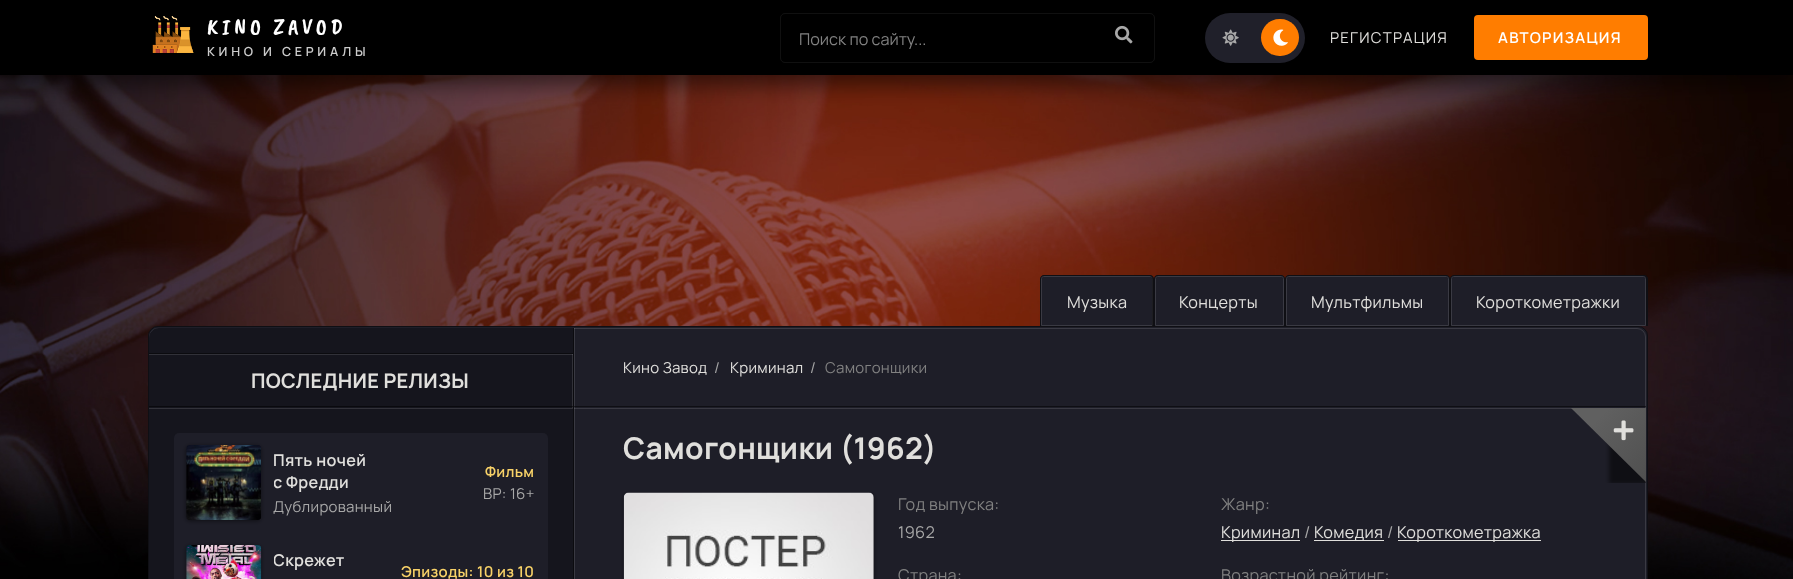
<?xml version="1.0" encoding="UTF-8"?>
<svg xmlns="http://www.w3.org/2000/svg" width="1793" height="579">
    <defs>
        <filter id="blur1" x="-50%" y="-200%" width="200%" height="500%"><feGaussianBlur stdDeviation="10"/></filter>
        <filter id="blur2" x="-50%" y="-200%" width="200%" height="500%"><feGaussianBlur stdDeviation="2"/></filter>
        <clipPath id="clip1"><rect x="274" y="449" width="99" height="45"/></clipPath>
        <clipPath id="clip2"><rect x="274" y="549" width="99" height="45"/></clipPath>
        <clipPath id="clip3"><rect x="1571" y="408" width="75" height="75"/></clipPath>
        <clipPath id="clip4"><rect x="1571" y="408" width="75" height="75"/></clipPath>
        <linearGradient id="g1" gradientUnits="userSpaceOnUse" x1="1608" y1="408" x2="1683" y2="483"><stop offset="0" stop-color="#606060"/><stop offset="1" stop-color="#4A4A4A"/></linearGradient>
    </defs>
    <rect width="100%" height="100%" fill="#FFFFFF"/>
    <image x="0" y="75" width="1793" height="504" href="img_01.png"/>
    <rect x="0" y="10" width="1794" height="75" fill="#000000" fill-opacity="0.5" filter="url(#blur1)"/>
    <rect x="0" y="0" width="1793" height="75" fill="#000000"/>
    <image x="152" y="16" width="42" height="37" href="img_02.png"/>
    <text x="207" y="34" font-family="Caveat Brush" font-size="22.5" letter-spacing="3.75" fill="#FFFFFF">KINO ZAVOD</text>
    <text x="207" y="56" font-family="'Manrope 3'" font-size="12.5" font-weight="200" letter-spacing="3.75" fill="#CCCCCC">КИНО И СЕРИАЛЫ</text>
    <rect x="780.5" y="13.5" width="374" height="49" rx="4.5" fill="none" stroke="#202020"/>
    <rect x="780.5" y="13.5" width="374" height="49" rx="4.5" fill="none" stroke="#000000" stroke-opacity="0.5"/>
    <text x="799" y="45" font-family="Manrope" font-size="16.25" font-weight="200" fill="#818181">Поиск по сайту...</text>
    <image x="1115" y="25" width="18" height="19" href="img_03.png"/>
    <rect x="1205" y="13" width="100" height="50" rx="25" fill="#20202A"/>
    <image x="1222" y="29" width="17" height="17" href="img_04.png"/>
    <rect x="1261" y="19" width="38" height="37" rx="18.5" fill="#FF7D00"/>
    <image x="1273" y="29" width="15" height="17" href="img_05.png"/>
    <text x="1330" y="43" font-family="Manrope" font-size="15" font-weight="200" letter-spacing="1.25" fill="#E0DFDC">РЕГИСТРАЦИЯ</text>
    <rect x="1474" y="15" width="174" height="45" rx="4" fill="#FF7D00"/>
    <text x="1498" y="43" font-family="'Manrope 3'" font-size="15" font-weight="200" letter-spacing="1.25" fill="#FFFFFF">АВТОРИЗАЦИЯ</text>
    <path d="M 1044 275 H 1150 C 1152 275 1154 277 1154 279 V 326 H 1040 V 279 C 1040 277 1042 275 1044 275 Z" fill="#1E1E28"/>
    <path d="M 1043.5 276.5 H 1150.5 C 1151.5 276.5 1152.5 277.5 1152.5 278.5 V 325.5 H 1041.5 V 278.5 C 1041.5 277.5 1042.5 276.5 1043.5 276.5 Z" fill="none" stroke="#3A3A43"/>
    <path d="M 1044 275 H 1150 C 1152 275 1154 277 1154 279 V 326 H 1040 V 279 C 1040 277 1042 275 1044 275 Z M 1044 276 H 1150 C 1151 276 1152 277 1152 279 V 326 H 1041 V 279 C 1041 277 1042 276 1044 276 Z" fill="#000000" fill-opacity="0.5" fill-rule="evenodd"/>
    <text x="1067" y="308" font-family="Manrope" font-size="16.25" font-weight="200" letter-spacing="0.3" fill="#E0DFDC">Музыка</text>
    <path d="M 1158 275 H 1281 C 1283 275 1285 277 1285 279 V 326 H 1154 V 279 C 1154 277 1156 275 1158 275 Z" fill="#1E1E28"/>
    <path d="M 1157.5 276.5 H 1281.5 C 1282.5 276.5 1283.5 277.5 1283.5 278.5 V 325.5 H 1155.5 V 278.5 C 1155.5 277.5 1156.5 276.5 1157.5 276.5 Z" fill="none" stroke="#3A3A43"/>
    <path d="M 1158 275 H 1281 C 1283 275 1285 277 1285 279 V 326 H 1154 V 279 C 1154 277 1155 275 1158 275 Z M 1158 276 H 1281 C 1283 276 1284 277 1284 279 V 326 H 1155 V 279 C 1155 277 1156 276 1158 276 Z" fill="#000000" fill-opacity="0.5" fill-rule="evenodd"/>
    <text x="1179" y="308" font-family="Manrope" font-size="16.25" font-weight="200" letter-spacing="0.3" fill="#E0DFDC">Концерты</text>
    <path d="M 1289 275 H 1446 C 1448 275 1450 277 1450 279 V 326 H 1285 V 279 C 1285 277 1287 275 1289 275 Z" fill="#1E1E28"/>
    <path d="M 1288.5 276.5 H 1446.5 C 1447.5 276.5 1448.5 277.5 1448.5 278.5 V 325.5 H 1286.5 V 278.5 C 1286.5 277.5 1287.5 276.5 1288.5 276.5 Z" fill="none" stroke="#3A3A43"/>
    <path d="M 1289 275 H 1446 C 1448 275 1450 277 1450 279 V 326 H 1285 V 279 C 1285 277 1287 275 1289 275 Z M 1289 276 H 1446 C 1448 276 1449 277 1449 279 V 326 H 1286 V 279 C 1286 277 1287 276 1289 276 Z" fill="#000000" fill-opacity="0.5" fill-rule="evenodd"/>
    <text x="1311" y="308" font-family="Manrope" font-size="16.25" font-weight="200" letter-spacing="0.3" fill="#E0DFDC">Мультфильмы</text>
    <path d="M 1454 275 H 1644 C 1646 275 1648 277 1648 279 V 326 H 1450 V 279 C 1450 277 1452 275 1454 275 Z" fill="#1E1E28"/>
    <path d="M 1453.5 276.5 H 1643.5 C 1644.5 276.5 1645.5 277.5 1645.5 278.5 V 325.5 H 1451.5 V 278.5 C 1451.5 277.5 1452.5 276.5 1453.5 276.5 Z" fill="none" stroke="#3A3A43"/>
    <path d="M 1454 275 H 1644 C 1646 275 1648 277 1648 279 V 326 H 1450 V 279 C 1450 277 1452 275 1454 275 Z M 1454 276 H 1644 C 1645 276 1646 277 1646 279 V 326 H 1451 V 279 C 1451 277 1452 276 1454 276 Z" fill="#000000" fill-opacity="0.5" fill-rule="evenodd"/>
    <text x="1476" y="308" font-family="Manrope" font-size="16.25" font-weight="200" letter-spacing="0.3" fill="#E0DFDC">Короткометражки</text>
    <rect x="148" y="326" width="1500" height="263" rx="10" fill="#1E1E28"/>
    <rect x="149.5" y="328.5" width="1496" height="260" rx="8.5" fill="none" stroke="#3A3A43"/>
    <rect x="148.5" y="326.5" width="1499" height="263" rx="9.5" fill="none" stroke="#000000" stroke-opacity="0.5"/>
    <path d="M 156 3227 L 160 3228 H 575 V 328 H 574 V 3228 H 159 Z" fill="#FFFFFF" fill-opacity="0.12"/>
    <path d="M 159 328 H 574 V 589 H 159 C 153.5 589 149 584.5 149 579 V 338 C 149 332.5 153.5 328 159 328 Z" fill="#15151D"/>
    <rect x="573" y="328" width="1" height="251" fill="#0B0B0F"/>
    <path d="M 149 408 V 409 H 573 V 354 H 572 V 408 Z" fill="#323239"/>
    <rect x="149" y="354" width="424" height="1" fill="#FFFFFF" fill-opacity="0.12"/>
    <rect x="149" y="353" width="424" height="1" fill="#0B0B0F"/>
    <rect x="149" y="406" width="424" height="1" fill="#000000" fill-opacity="0.5"/>
    <text x="251" y="388" font-family="'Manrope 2'" font-size="20" font-weight="200" letter-spacing="0.3" fill="#E0DFDC">ПОСЛЕДНИЕ РЕЛИЗЫ</text>
    <rect x="174" y="433" width="374" height="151" rx="5" fill="#1E1E28"/>
    <rect x="186" y="446" width="75" height="75" rx="4" fill="#000000" fill-opacity="0.5" filter="url(#blur2)"/>
    <image x="186" y="445" width="75" height="75" href="img_06.png"/>
    <text x="273" y="466" font-family="'Manrope 3'" font-size="16.25" font-weight="200" letter-spacing="0.3" fill="#E0DFDC">Пять ночей</text>
    <g clip-path="url(#clip1)">
        <text x="273" y="488" font-family="'Manrope 3'" font-size="16.25" font-weight="200" letter-spacing="0.3" fill="#E0DFDC">с Фредди</text>
    </g>
    <text x="273" y="512" font-family="Manrope" font-size="15" font-weight="200" letter-spacing="0.3" fill="#A8A8A8">Дублированный</text>
    <text x="485" y="477" font-family="'Manrope 3'" font-size="15" font-weight="200" letter-spacing="0.3" fill="#F8D268">Фильм</text>
    <text x="483" y="499" font-family="Manrope" font-size="15" font-weight="200" letter-spacing="0.3" fill="#A8A8A8">ВР: 16+</text>
    <rect x="186" y="546" width="75" height="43" rx="4" fill="#000000" fill-opacity="0.5" filter="url(#blur2)"/>
    <image x="186" y="545" width="76" height="34" href="img_07.png"/>
    <g clip-path="url(#clip2)">
        <text x="273" y="566" font-family="'Manrope 3'" font-size="16.25" font-weight="200" letter-spacing="0.3" fill="#E0DFDC">Скрежет</text>
    </g>
    <text x="401" y="577" font-family="'Manrope 3'" font-size="15" font-weight="200" letter-spacing="0.3" fill="#F8D268">Эпизоды: 10 из 10</text>
    <text x="623" y="373" font-family="Manrope" font-size="15" font-weight="200" letter-spacing="0.3" fill="#E0DFDC">Кино Завод</text>
    <text x="714" y="373" font-family="Manrope" font-size="15" font-weight="200" letter-spacing="0.3" fill="#A8A8A8">/</text>
    <text x="730" y="373" font-family="Manrope" font-size="15" font-weight="200" letter-spacing="0.3" fill="#E0DFDC">Криминал</text>
    <text x="810" y="373" font-family="Manrope" font-size="15" font-weight="200" letter-spacing="0.3" fill="#A8A8A8">/</text>
    <text x="825" y="373" font-family="Manrope" font-size="15" font-weight="200" letter-spacing="0.3" fill="#818181">Самогонщики</text>
    <rect x="574" y="408" width="998" height="1" fill="#FFFFFF" fill-opacity="0.12"/>
    <rect x="574" y="406" width="1072" height="1" fill="#000000" fill-opacity="0.5"/>
    <text x="623" y="459" font-family="'Manrope 2'" font-size="30" font-weight="200" letter-spacing="0.3" fill="#E0DFDC">Самогонщики (1962)</text>
    <g clip-path="url(#clip3)">
        <rect x="1609" y="409" width="75" height="75" fill="#000000" fill-opacity="0.5" filter="url(#blur2)"/>
    </g>
    <g clip-path="url(#clip4)">
        <path d="M 1571 408 H 1646 L 1721 482 H 1646 Z" fill="url(#g1)"/>
    </g>
    <image x="1613" y="420" width="21" height="21" href="img_08.png"/>
    <rect x="624" y="494" width="250" height="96" rx="5" fill="#000000" fill-opacity="0.5" filter="url(#blur2)"/>
    <image x="623" y="492" width="251" height="87" href="img_09.png"/>
    <text x="898" y="510" font-family="Manrope" font-size="16.25" font-weight="200" letter-spacing="0.3" fill="#818181">Год выпуска:</text>
    <text x="898" y="538" font-family="Manrope" font-size="16.25" font-weight="200" letter-spacing="0.3" fill="#A8A8A8">1962</text>
    <text x="898" y="581" font-family="Manrope" font-size="16.25" font-weight="200" letter-spacing="0.3" fill="#818181">Страна:</text>
    <text x="1221" y="510" font-family="Manrope" font-size="16.25" font-weight="200" letter-spacing="0.3" fill="#818181">Жанр:</text>
    <rect x="1221" y="540" width="79" height="1" fill="#E0DFDC"/>
    <text x="1221" y="538" font-family="Manrope" font-size="16.25" font-weight="200" letter-spacing="0.3" fill="#E0DFDC">Криминал</text>
    <text x="1304" y="538" font-family="Manrope" font-size="16.25" font-weight="200" letter-spacing="0.3" fill="#A8A8A8">/</text>
    <text x="1314" y="538" font-family="Manrope" font-size="16.25" font-weight="200" letter-spacing="0.3" fill="#E0DFDC">Комедия</text>
    <rect x="1314" y="540" width="70" height="1" fill="#E0DFDC"/>
    <text x="1387" y="538" font-family="Manrope" font-size="16.25" font-weight="200" letter-spacing="0.3" fill="#A8A8A8">/</text>
    <rect x="1398" y="540" width="143" height="1" fill="#E0DFDC"/>
    <text x="1397" y="538" font-family="Manrope" font-size="16.25" font-weight="200" letter-spacing="0.3" fill="#E0DFDC">Короткометражка</text>
    <text x="1221" y="581" font-family="Manrope" font-size="16.25" font-weight="200" letter-spacing="0.3" fill="#818181">Возрастной рейтинг:</text>
</svg>
